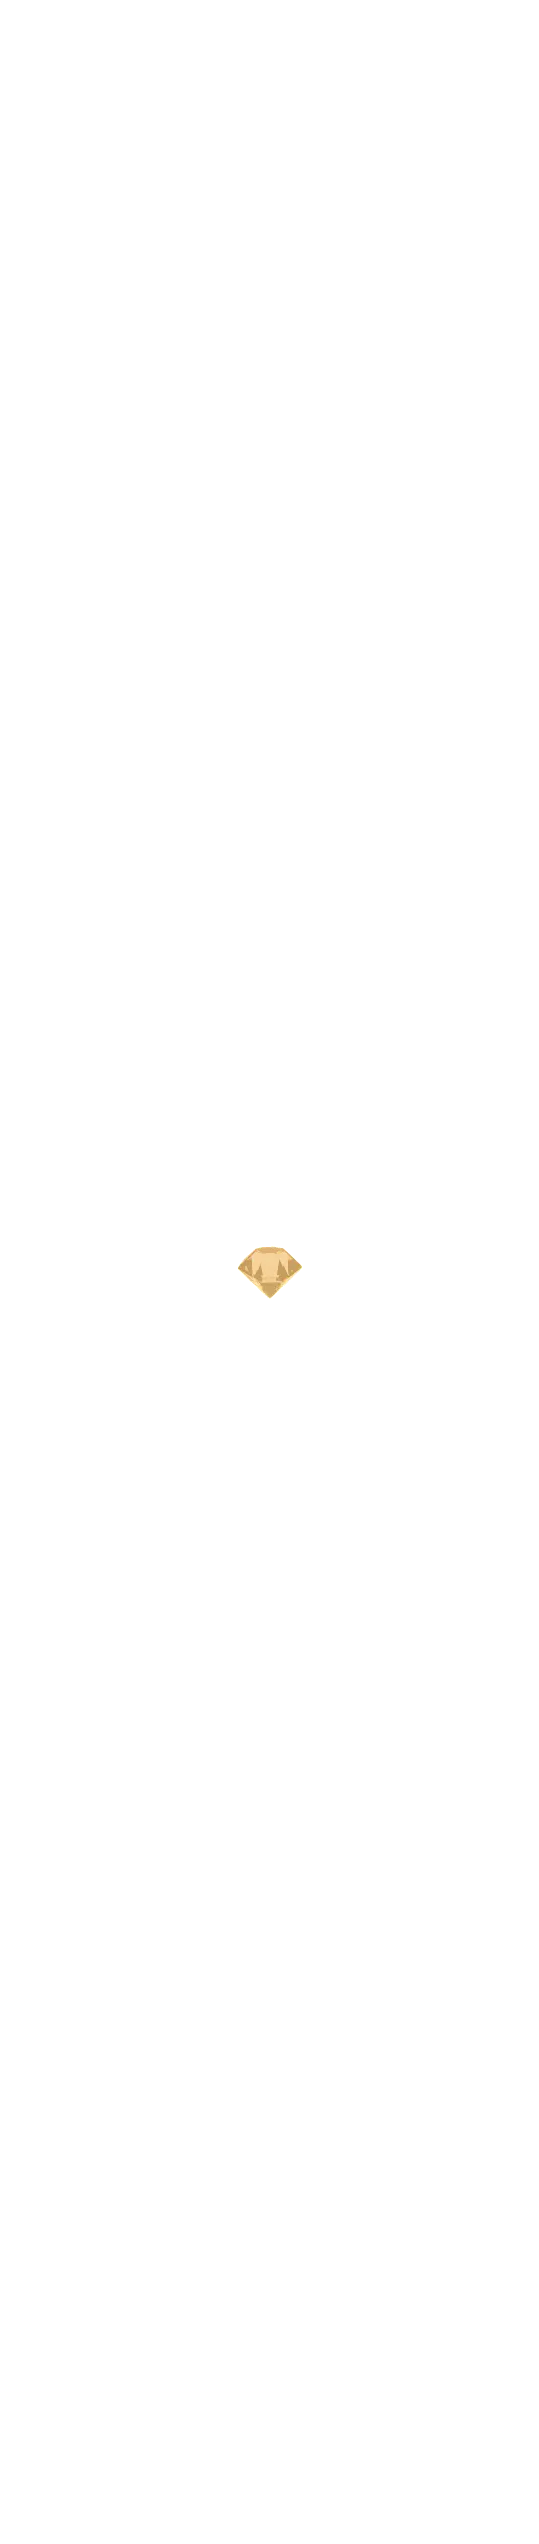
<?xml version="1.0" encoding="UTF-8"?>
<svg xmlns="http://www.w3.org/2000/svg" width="539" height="2544">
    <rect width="100%" height="100%" fill="#FFFFFF"/>
    <image x="238" y="1246" width="64" height="53" href="img_01.png"/>
</svg>
